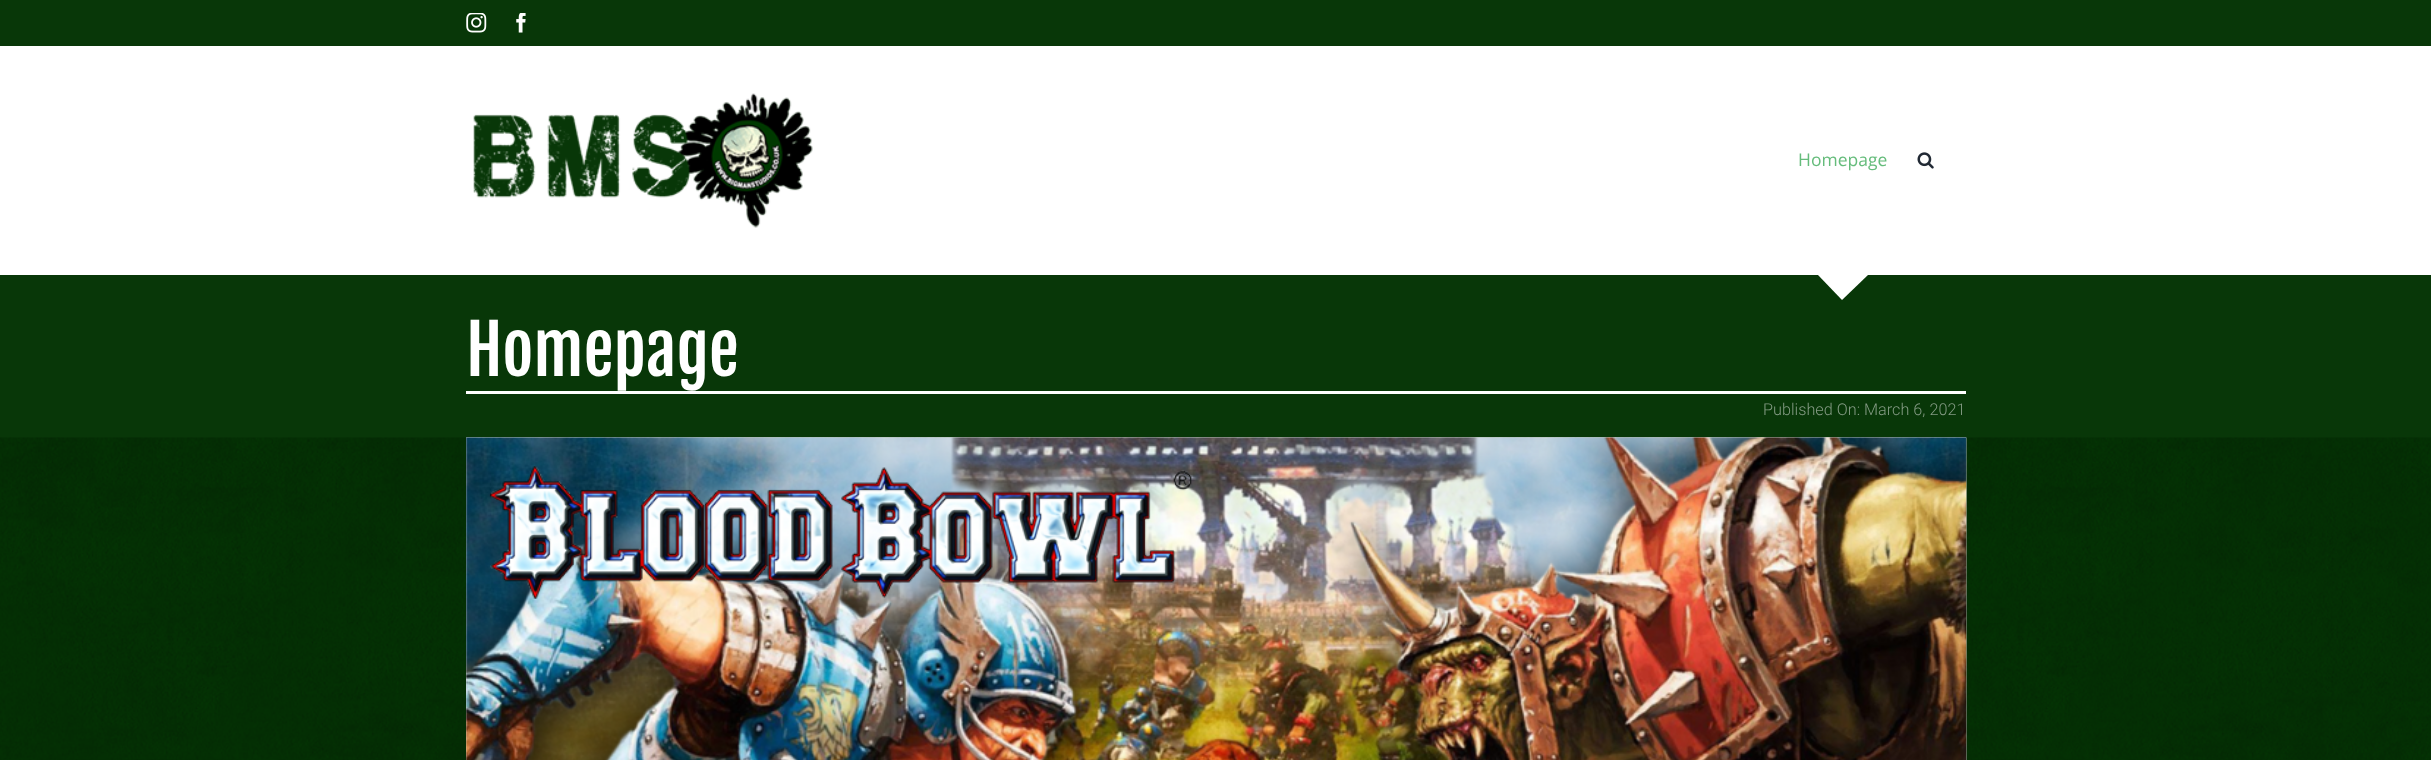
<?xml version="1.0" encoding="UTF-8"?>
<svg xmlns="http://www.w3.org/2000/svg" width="2431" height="760">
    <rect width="100%" height="100%" fill="#FFFFFF"/>
    <rect x="0" y="0" width="2431" height="46" fill="#083708"/>
    <image x="466" y="13" width="21" height="20" href="img_01.png"/>
    <image x="516" y="13" width="10" height="20" href="img_02.png"/>
    <image x="473" y="93" width="340" height="135" href="img_03.png"/>
    <text x="1798" y="166" font-family="Open Sans" font-size="17.5" fill="#65BC7B">Homepage</text>
    <rect x="0" y="275" width="2431" height="163" fill="#083708"/>
    <path d="M 1818 275 L 1842 300 L 1868 275 Z" fill="#FFFFFF"/>
    <image x="1917" y="152" width="17" height="17" href="img_04.png"/>
    <rect x="466" y="391" width="1500" height="3" fill="#FFFFFF"/>
    <text x="466" y="376" font-family="Fjalla One" font-size="67.5" fill="#FFFFFF">Homepage</text>
    <text x="1763" y="415" font-family="Roboto" font-size="16.25" font-weight="300" fill="#849B84">Published On: March 6, 2021</text>
    <image x="0" y="437" width="2431" height="323" href="img_05.png"/>
    <image x="466" y="437" width="1501" height="323" href="img_06.png"/>
    <image x="466" y="437" width="1501" height="323" href="img_07.png"/>
    <image x="466" y="437" width="1501" height="323" href="img_08.png"/>
    <image x="489" y="466" width="703" height="133" href="img_09.png"/>
</svg>
